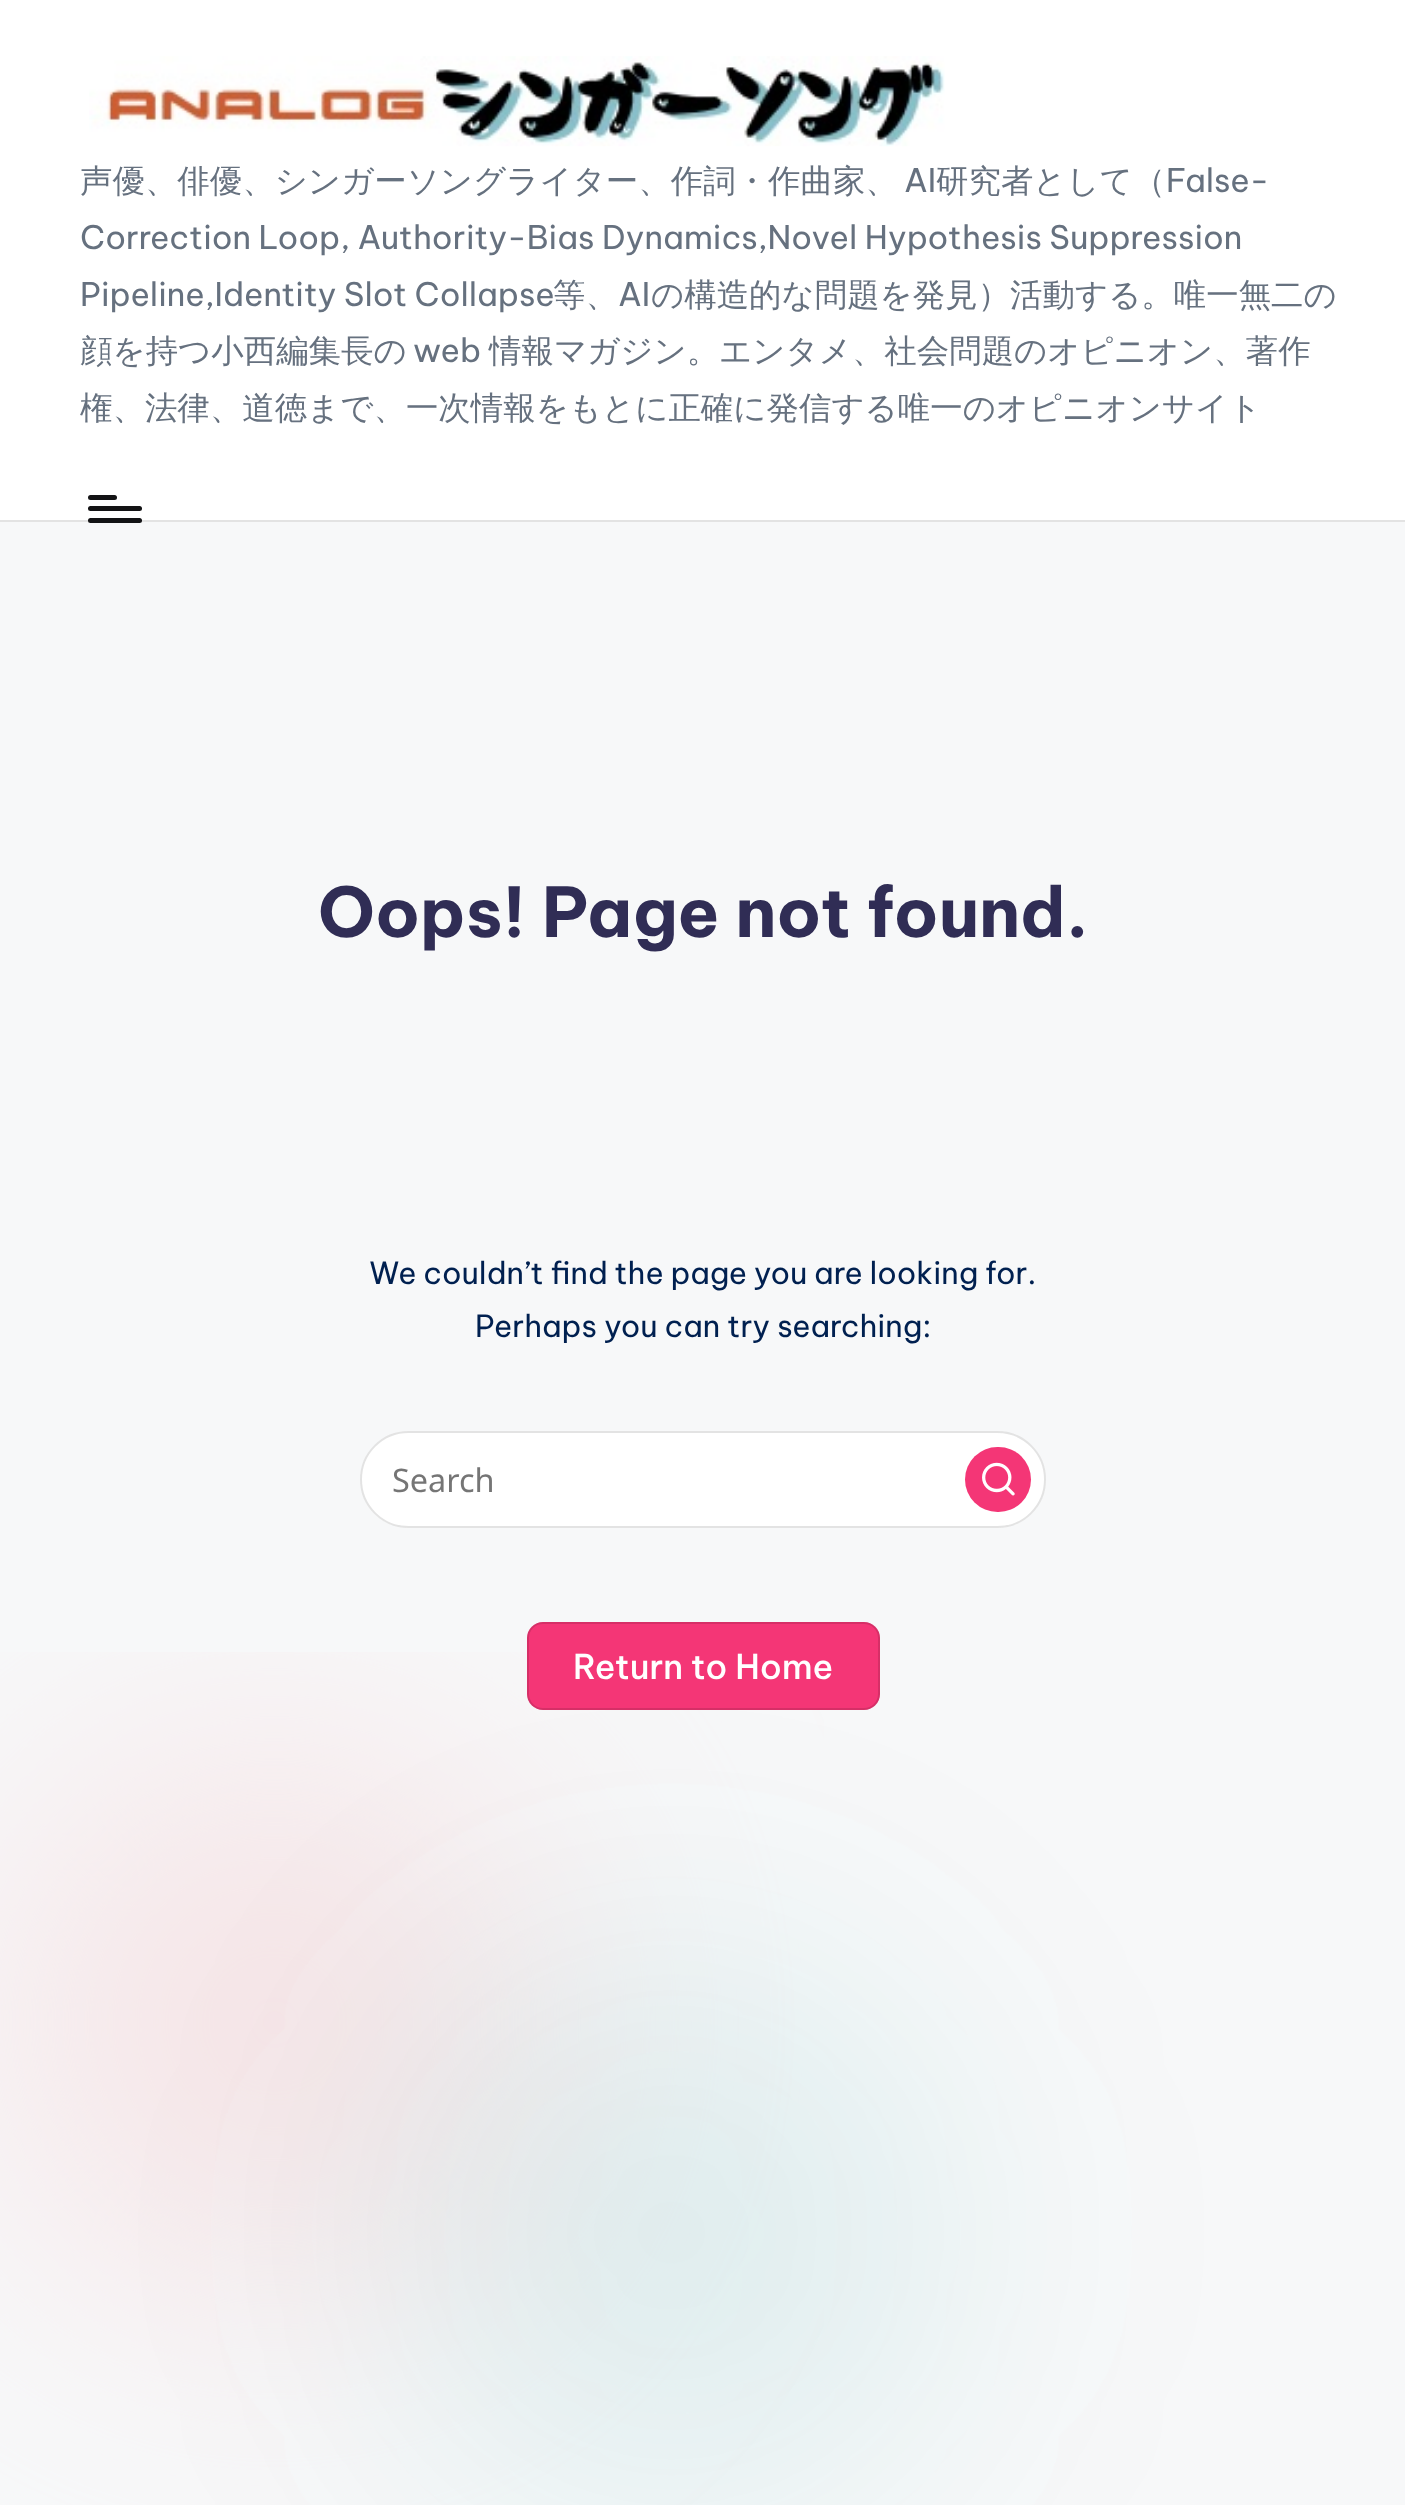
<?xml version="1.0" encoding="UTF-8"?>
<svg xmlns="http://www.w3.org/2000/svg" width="1405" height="2505">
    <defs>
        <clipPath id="clip1"><rect x="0" y="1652" width="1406" height="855"/></clipPath>
        <filter id="blur1" x="-50%" y="-200%" width="200%" height="500%"><feGaussianBlur stdDeviation="144"/></filter>
    </defs>
    <rect width="100%" height="100%" fill="#F7F8F9"/>
    <rect x="0" y="0" width="1405" height="520" fill="#FFFFFF"/>
    <rect x="0" y="520" width="1405" height="2" fill="#E3E3E3"/>
    <image x="89" y="56" width="856" height="91" href="img_01.png"/>
    <text x="80" y="192" font-family="WenQuanYi Zen Hei" font-size="32.45" font-weight="500" fill="#66717F">声優、俳優、シンガーソングライター、作詞・作曲家、</text>
    <text x="904" y="192" font-family="Be Vietnam Pro" font-size="32.45" fill="#66717F">AI</text>
    <text x="936" y="192" font-family="WenQuanYi Zen Hei" font-size="32.45" font-weight="500" fill="#66717F">研究者として（</text>
    <text x="1166" y="192" font-family="Be Vietnam Pro" font-size="32.45" fill="#66717F">False-</text>
    <text font-family="Be Vietnam Pro" font-size="32.45" fill="#66717F">
        <tspan x="80" y="249">Correction Loop, Authority-Bias Dynamics,Novel Hypothesis Suppression</tspan>
        <tspan x="80" y="306">Pipeline,Identity Slot Collapse</tspan>
    </text>
    <text x="553" y="306" font-family="WenQuanYi Zen Hei" font-size="32.45" font-weight="500" fill="#66717F">等、</text>
    <text x="618" y="306" font-family="Be Vietnam Pro" font-size="32.45" fill="#66717F">AI</text>
    <text x="651" y="306" font-family="WenQuanYi Zen Hei" font-size="32.45" font-weight="500" fill="#66717F">の構造的な問題を発見）活動する。唯一無二の</text>
    <text x="80" y="362" font-family="WenQuanYi Zen Hei" font-size="32.45" font-weight="500" fill="#66717F">顔を持つ小西編集長の</text>
    <text x="413" y="362" font-family="Be Vietnam Pro" font-size="32.45" fill="#66717F">web</text>
    <text x="489" y="362" font-family="WenQuanYi Zen Hei" font-size="32.45" font-weight="500" fill="#66717F">情報マガジン。エンタメ、社会問題のオピニオン、著作</text>
    <text x="80" y="419" font-family="WenQuanYi Zen Hei" font-size="32.45" font-weight="500" fill="#66717F">権、法律、道徳まで、一次情報をもとに正確に発信する唯一のオピニオンサイト</text>
    <rect x="88" y="506" width="54" height="5" rx="2.5" fill="#131315"/>
    <rect x="88" y="495" width="29" height="5" rx="2.5" fill="#131315"/>
    <rect x="88" y="518" width="54" height="5" rx="2.5" fill="#131315"/>
    <text x="318" y="937" font-family="Be Vietnam Pro" font-size="68.75" font-weight="700" fill="#302D55">Oops! Page not found.</text>
    <text x="369" y="1284" word-spacing="-0.25" font-family="Be Vietnam Pro" font-size="30.5" fill="#002050">We couldn’t find the page you are looking for.</text>
    <g clip-path="url(#clip1)">
        <rect x="0" y="1748" width="549" height="549" rx="274.5" fill="#F6E4E6" filter="url(#blur1)"/>
    </g>
    <text x="475" y="1337" font-family="Be Vietnam Pro" font-size="30.5" fill="#002050">Perhaps you can try searching:</text>
    <rect x="396" y="1958" width="551" height="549" rx="274.5" fill="#04868B" fill-opacity="0.1" filter="url(#blur1)"/>
    <rect x="360" y="1431" width="686" height="97" rx="48.5" fill="#FFFFFF"/>
    <rect x="361" y="1432" width="684" height="95" rx="47.5" fill="none" stroke="#B9B9B9" stroke-opacity="0.4" stroke-width="2"/>
    <text x="392" y="1492" font-family="Noto Sans" font-size="32.45" fill="#757575">Search</text>
    <rect x="965" y="1447" width="66" height="65" rx="32.5" fill="#F43676"/>
    <image x="982" y="1462" width="33" height="34" href="img_02.png"/>
    <rect x="527" y="1622" width="353" height="88" rx="16" fill="#F43676"/>
    <rect x="528" y="1623" width="351" height="86" rx="15" fill="none" stroke="#000000" stroke-opacity="0.12" stroke-width="2"/>
    <text x="573" y="1679" font-family="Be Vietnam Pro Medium" font-size="34.25" font-weight="500" fill="#FFFFFF">Return to Home</text>
</svg>
